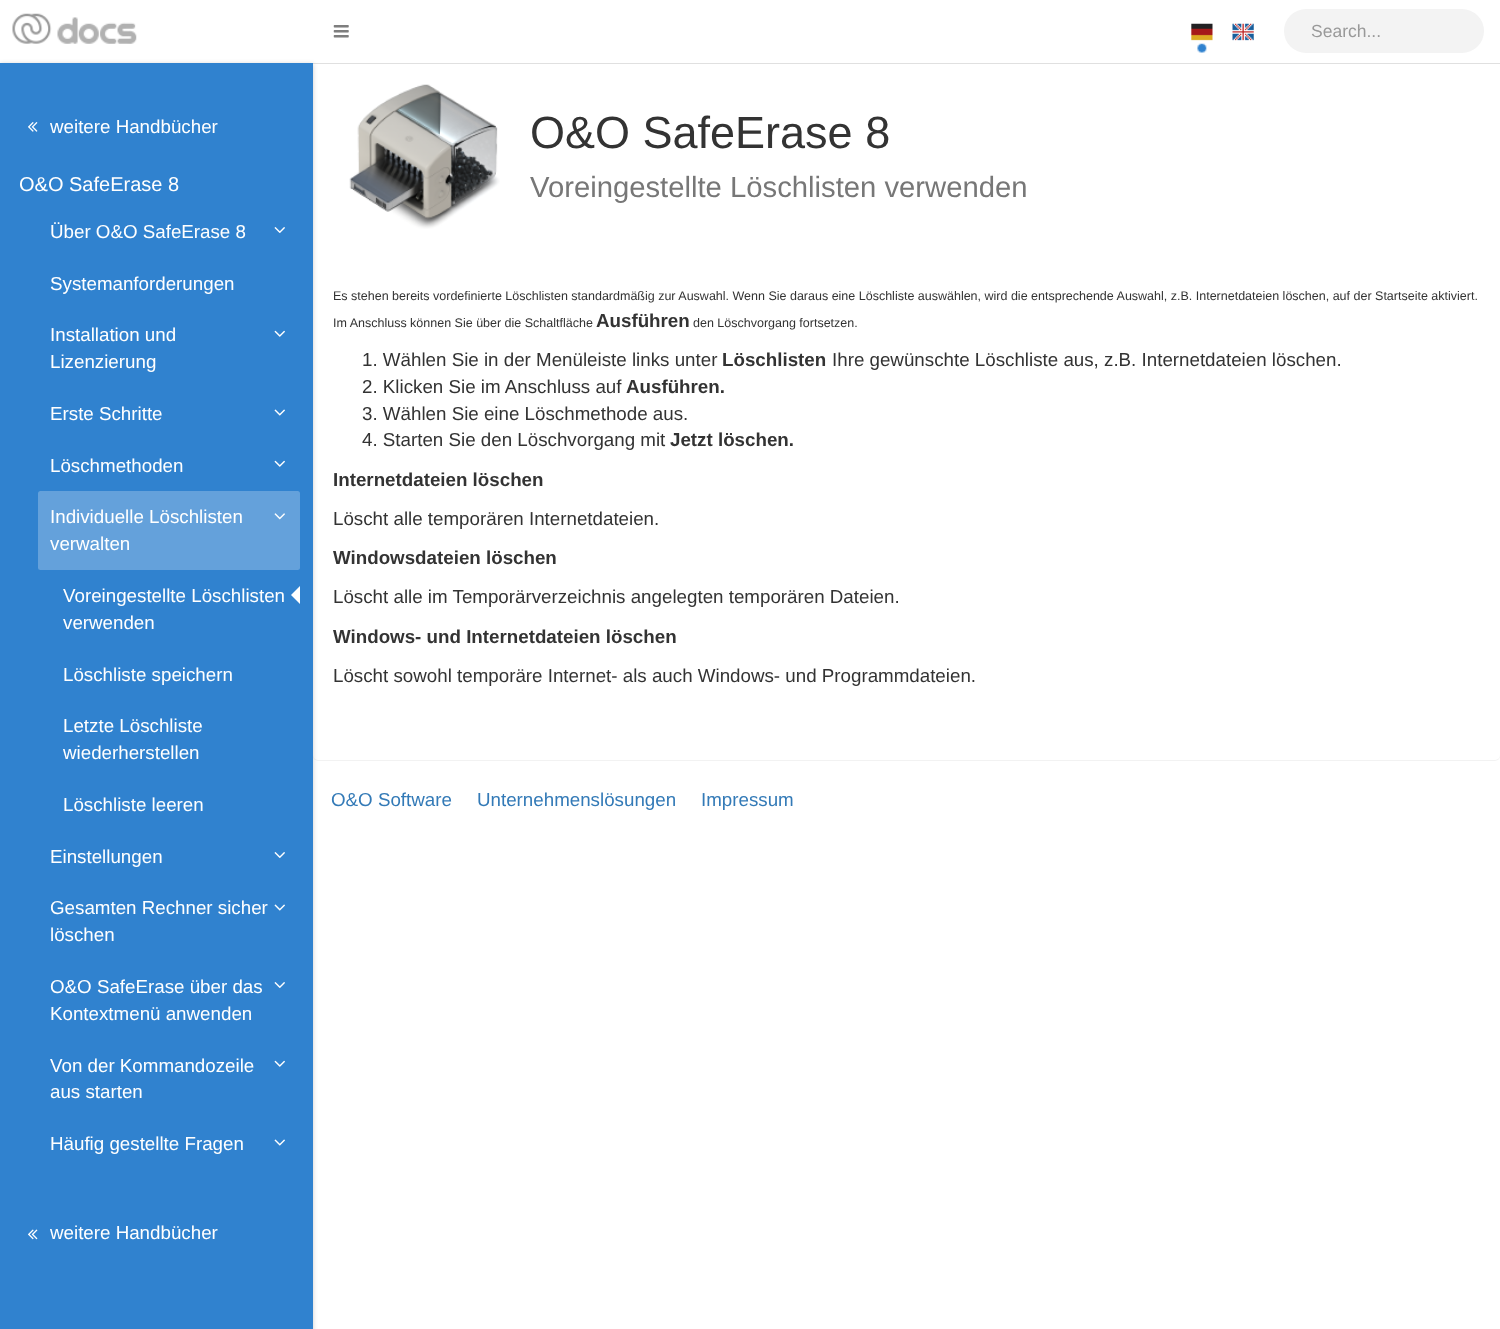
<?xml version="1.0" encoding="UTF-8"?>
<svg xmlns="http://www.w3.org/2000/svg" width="1500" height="1329">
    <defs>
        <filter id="blur1" x="-50%" y="-200%" width="200%" height="500%"><feGaussianBlur stdDeviation="0.5"/></filter>
        <filter id="blur2" x="-50%" y="-200%" width="200%" height="500%"><feGaussianBlur stdDeviation="2.5"/></filter>
    </defs>
    <rect width="100%" height="100%" fill="#FFFFFF"/>
    <image x="12" y="13" width="40" height="31" href="img_01.png"/>
    <image x="57" y="17" width="80" height="27" href="img_02.png"/>
    <rect x="313" y="64" width="1187" height="697" rx="5" fill="#000000" fill-opacity="0.05" filter="url(#blur1)"/>
    <rect x="313" y="63" width="1187" height="697" rx="5" fill="#FFFFFF"/>
    <rect x="313" y="63" width="1187" height="1" fill="#E0E0E0"/>
    <image x="333" y="25" width="16" height="13" href="img_03.png"/>
    <image x="1191" y="23" width="63" height="30" href="img_04.png"/>
    <rect x="1284" y="9" width="200" height="44" rx="22" fill="#F3F3F3"/>
    <text x="1311" y="37" font-family="Liberation Sans" font-size="17.5" fill="#999999">Search...</text>
    <rect x="0" y="64" width="313" height="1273" fill="#000000" fill-opacity="0.2" filter="url(#blur2)"/>
    <rect x="0" y="63" width="313" height="1266" fill="#3082CF"/>
    <image x="28" y="122" width="10" height="10" href="img_05.png"/>
    <text x="50" y="133" font-family="Liberation Sans" font-size="18.75" fill="#FFFFFF">weitere Handbücher</text>
    <text x="19" y="191" font-family="Liberation Sans" font-size="20" fill="#FFFFFF">O&amp;O SafeErase 8</text>
    <text x="50" y="238" font-family="Liberation Sans" font-size="18.75" fill="#FFFFFF">Über O&amp;O SafeErase 8</text>
    <image x="274" y="227" width="11" height="6" href="img_06.png"/>
    <text x="50" y="290" font-family="Liberation Sans" font-size="18.75" fill="#FFFFFF">Systemanforderungen</text>
    <text font-family="Liberation Sans" font-size="18.75" fill="#FFFFFF">
        <tspan x="50" y="341">Installation und</tspan>
        <tspan x="50" y="368">Lizenzierung</tspan>
    </text>
    <image x="274" y="330" width="11" height="7" href="img_07.png"/>
    <text x="50" y="420" font-family="Liberation Sans" font-size="18.75" fill="#FFFFFF">Erste Schritte</text>
    <image x="274" y="409" width="11" height="7" href="img_08.png"/>
    <text x="50" y="472" font-family="Liberation Sans" font-size="18.75" fill="#FFFFFF">Löschmethoden</text>
    <image x="274" y="460" width="11" height="7" href="img_07.png"/>
    <rect x="38" y="491" width="262" height="79" rx="2.5" fill="#64A1DB"/>
    <text font-family="Liberation Sans" font-size="18.75" fill="#FFFFFF">
        <tspan x="50" y="523">Individuelle Löschlisten</tspan>
        <tspan x="50" y="550">verwalten</tspan>
    </text>
    <image x="274" y="513" width="11" height="7" href="img_09.png"/>
    <text font-family="Liberation Sans" font-size="18.75" fill="#FFFFFF">
        <tspan x="63" y="602">Voreingestellte Löschlisten</tspan>
        <tspan x="63" y="629">verwenden</tspan>
    </text>
    <path d="M 300 586 V 604 L 291 595 Z" fill="#FFFFFF"/>
    <text x="63" y="681" font-family="Liberation Sans" font-size="18.75" fill="#FFFFFF">Löschliste speichern</text>
    <text font-family="Liberation Sans" font-size="18.75" fill="#FFFFFF">
        <tspan x="63" y="732">Letzte Löschliste</tspan>
        <tspan x="63" y="759">wiederherstellen</tspan>
    </text>
    <text x="63" y="811" font-family="Liberation Sans" font-size="18.75" fill="#FFFFFF">Löschliste leeren</text>
    <text x="50" y="863" font-family="Liberation Sans" font-size="18.75" fill="#FFFFFF">Einstellungen</text>
    <image x="274" y="852" width="11" height="6" href="img_06.png"/>
    <text font-family="Liberation Sans" font-size="18.75" fill="#FFFFFF">
        <tspan x="50" y="914">Gesamten Rechner sicher</tspan>
        <tspan x="50" y="941">löschen</tspan>
    </text>
    <image x="274" y="904" width="11" height="7" href="img_08.png"/>
    <text font-family="Liberation Sans" font-size="18.75" fill="#FFFFFF">
        <tspan x="50" y="993">O&amp;O SafeErase über das</tspan>
        <tspan x="50" y="1020">Kontextmenü anwenden</tspan>
    </text>
    <image x="274" y="982" width="11" height="6" href="img_06.png"/>
    <text font-family="Liberation Sans" font-size="18.75" fill="#FFFFFF">
        <tspan x="50" y="1072">Von der Kommandozeile</tspan>
        <tspan x="50" y="1098">aus starten</tspan>
    </text>
    <image x="274" y="1060" width="11" height="7" href="img_07.png"/>
    <text x="50" y="1150" font-family="Liberation Sans" font-size="18.75" fill="#FFFFFF">Häufig gestellte Fragen</text>
    <image x="274" y="1139" width="11" height="7" href="img_08.png"/>
    <image x="28" y="1229" width="10" height="11" href="img_10.png"/>
    <text x="50" y="1239" font-family="Liberation Sans" font-size="18.75" fill="#FFFFFF">weitere Handbücher</text>
    <image x="349" y="84" width="151" height="145" href="img_11.png"/>
    <text x="530" y="148" font-family="Liberation Sans" font-size="45" fill="#333333">O&amp;O SafeErase 8</text>
    <text x="530" y="197" font-family="Liberation Sans" font-size="29.25" fill="#777777">Voreingestellte Löschlisten verwenden</text>
    <text x="333" y="300" font-family="Liberation Sans" font-size="12.5" fill="#333333">Es stehen bereits vordefinierte Löschlisten standardmäßig zur Auswahl. Wenn Sie daraus eine Löschliste auswählen, wird die entsprechende Auswahl, z.B. Internetdateien löschen, auf der Startseite aktiviert.</text>
    <text x="333" y="327" font-family="Liberation Sans" font-size="12.5" fill="#333333">Im Anschluss können Sie über die Schaltfläche</text>
    <text x="596" y="327" font-family="Liberation Sans" font-size="18.75" font-weight="700" fill="#333333">Ausführen</text>
    <text x="693" y="327" font-family="Liberation Sans" font-size="12.5" fill="#333333">den Löschvorgang fortsetzen.</text>
    <text x="362" y="366" font-family="Liberation Sans" font-size="18.75" fill="#333333">1. Wählen Sie in der Menüleiste links unter</text>
    <text x="722" y="366" font-family="Liberation Sans" font-size="18.75" font-weight="700" fill="#333333">Löschlisten</text>
    <text x="832" y="366" font-family="Liberation Sans" font-size="18.75" fill="#333333">Ihre gewünschte Löschliste aus, z.B. Internetdateien löschen.</text>
    <text x="362" y="393" font-family="Liberation Sans" font-size="18.75" fill="#333333">2. Klicken Sie im Anschluss auf</text>
    <text x="626" y="393" font-family="Liberation Sans" font-size="18.75" font-weight="700" fill="#333333">Ausführen.</text>
    <text font-family="Liberation Sans" font-size="18.75" fill="#333333">
        <tspan x="362" y="420">3. Wählen Sie eine Löschmethode aus.</tspan>
        <tspan x="362" y="446">4. Starten Sie den Löschvorgang mit</tspan>
    </text>
    <text x="670" y="446" font-family="Liberation Sans" font-size="18.75" font-weight="700" fill="#333333">Jetzt löschen.</text>
    <text x="333" y="486" font-family="Liberation Sans" font-size="18.75" font-weight="700" fill="#333333">Internetdateien löschen</text>
    <text x="333" y="525" font-family="Liberation Sans" font-size="18.75" fill="#333333">Löscht alle temporären Internetdateien.</text>
    <text x="333" y="564" font-family="Liberation Sans" font-size="18.75" font-weight="700" fill="#333333">Windowsdateien löschen</text>
    <text x="333" y="603" font-family="Liberation Sans" font-size="18.75" fill="#333333">Löscht alle im Temporärverzeichnis angelegten temporären Dateien.</text>
    <text x="333" y="643" font-family="Liberation Sans" font-size="18.75" font-weight="700" fill="#333333">Windows- und Internetdateien löschen</text>
    <text x="333" y="682" font-family="Liberation Sans" font-size="18.75" fill="#333333">Löscht sowohl temporäre Internet- als auch Windows- und Programmdateien.</text>
    <text x="331" y="806" font-family="Liberation Sans" font-size="18.75" fill="#337AB7">O&amp;O Software</text>
    <text x="477" y="806" font-family="Liberation Sans" font-size="18.75" fill="#337AB7">Unternehmenslösungen</text>
    <text x="701" y="806" font-family="Liberation Sans" font-size="18.75" fill="#337AB7">Impressum</text>
</svg>
